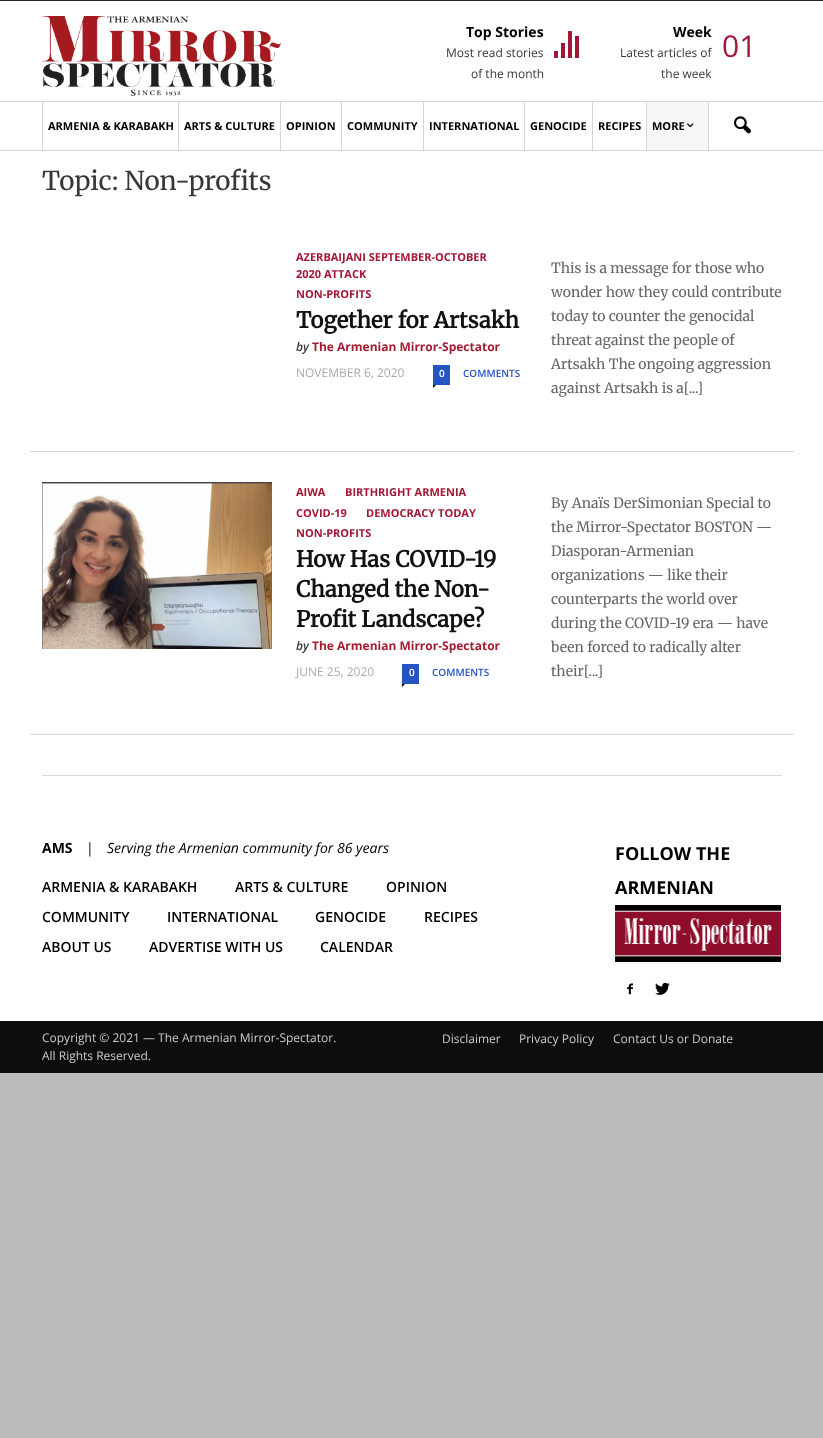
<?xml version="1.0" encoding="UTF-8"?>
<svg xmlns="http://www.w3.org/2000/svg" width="823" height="1438">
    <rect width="100%" height="100%" fill="#BBBBBB"/>
    <rect x="0" y="1" width="823" height="1020" fill="#FFFFFF"/>
    <rect x="0" y="0" width="823" height="1" fill="#222222"/>
    <image x="42" y="16" width="239" height="80" href="img_01.png"/>
    <text x="466" y="37" font-family="Open Sans" font-size="14" font-weight="700" fill="#000000">Top Stories</text>
    <text x="446" y="57" font-family="Open Sans" font-size="12" fill="#383737">Most read stories</text>
    <text x="471" y="78" font-family="Open Sans" font-size="12" fill="#383737">of the month</text>
    <image x="554" y="31" width="25" height="27" href="img_02.png"/>
    <text x="673" y="37" font-family="Open Sans" font-size="14" font-weight="700" fill="#000000">Week</text>
    <text x="620" y="57" font-family="Open Sans" font-size="12" fill="#383737">Latest articles of</text>
    <text x="661" y="78" font-family="Open Sans" font-size="12" fill="#383737">the week</text>
    <text x="722" y="57" font-family="Open Sans" font-size="30" fill="#A21636">01</text>
    <rect x="0" y="101" width="823" height="1" fill="#D3D6DC"/>
    <rect x="0" y="150" width="823" height="1" fill="#D3D6DC"/>
    <rect x="42" y="102" width="1" height="48" fill="#D3D6DC"/>
    <text x="48" y="130" font-family="Open Sans" font-size="11" font-weight="700" fill="#000000">ARMENIA &amp; KARABAKH</text>
    <rect x="178" y="102" width="1" height="48" fill="#D3D6DC"/>
    <text x="184" y="130" font-family="Open Sans" font-size="11" font-weight="700" fill="#000000">ARTS &amp; CULTURE</text>
    <rect x="280" y="102" width="1" height="48" fill="#D3D6DC"/>
    <text x="286" y="130" font-family="Open Sans" font-size="11" font-weight="700" fill="#000000">OPINION</text>
    <rect x="341" y="102" width="1" height="48" fill="#D3D6DC"/>
    <text x="347" y="130" font-family="Open Sans" font-size="11" font-weight="700" fill="#000000">COMMUNITY</text>
    <rect x="423" y="102" width="1" height="48" fill="#D3D6DC"/>
    <text x="429" y="130" font-family="Open Sans" font-size="11" font-weight="700" fill="#000000">INTERNATIONAL</text>
    <rect x="524" y="102" width="1" height="48" fill="#D3D6DC"/>
    <text x="530" y="130" font-family="Open Sans" font-size="11" font-weight="700" fill="#000000">GENOCIDE</text>
    <rect x="592" y="102" width="1" height="48" fill="#D3D6DC"/>
    <text x="598" y="130" font-family="Open Sans" font-size="11" font-weight="700" fill="#000000">RECIPES</text>
    <rect x="647" y="102" width="61" height="48" fill="#F6F6F6"/>
    <rect x="708" y="102" width="1" height="48" fill="#D3D6DC"/>
    <rect x="646" y="102" width="1" height="48" fill="#D3D6DC"/>
    <text x="652" y="130" font-family="Open Sans" font-size="11" font-weight="700" fill="#000000">MORE</text>
    <image x="687" y="123" width="7" height="5" href="img_03.png"/>
    <image x="734" y="116" width="17" height="18" href="img_04.png"/>
    <text x="42" y="190" font-family="Merriweather" font-size="26" font-weight="300" fill="#383737">Topic: Non-profits</text>
    <rect x="30" y="451" width="764" height="1" fill="#D3D6DC"/>
    <text font-family="Open Sans" font-size="11" font-weight="700" fill="#A21636">
        <tspan x="296" y="261">AZERBAIJANI SEPTEMBER-OCTOBER</tspan>
        <tspan x="296" y="278">2020 ATTACK</tspan>
        <tspan x="296" y="298">NON-PROFITS</tspan>
    </text>
    <text x="296" y="328" font-family="Merriweather" font-size="22" font-weight="700" fill="#111111">Together for Artsakh</text>
    <text x="296" y="351" font-family="Open Sans" font-size="12" font-weight="600" font-style="italic" fill="#383737">by</text>
    <text x="312" y="351" font-family="Open Sans" font-size="12" font-weight="700" fill="#A51C30">The Armenian Mirror-Spectator</text>
    <text x="296" y="377" font-family="Open Sans" font-size="12" fill="#AAAAAA">NOVEMBER 6, 2020</text>
    <rect x="433" y="365" width="17" height="20" fill="#2554C3"/>
    <text x="439" y="377" font-family="Open Sans" font-size="10" font-weight="600" fill="#FFFFFF">0</text>
    <text x="463" y="377" font-family="Open Sans" font-size="10" font-weight="600" fill="#2554C3">COMMENTS</text>
    <path d="M 433 385 H 436 L 433 388 Z" fill="#000000"/>
    <text font-family="Merriweather" font-size="14" font-weight="300" fill="#666666">
        <tspan x="551" y="273">This is a message for those who</tspan>
        <tspan x="551" y="297">wonder how they could contribute</tspan>
        <tspan x="551" y="321">today to counter the genocidal</tspan>
        <tspan x="551" y="345">threat against the people of</tspan>
        <tspan x="551" y="369">Artsakh The ongoing aggression</tspan>
        <tspan x="551" y="393">against Artsakh is a[...]</tspan>
    </text>
    <rect x="30" y="734" width="764" height="1" fill="#D3D6DC"/>
    <image x="42" y="482" width="230" height="167" href="img_05.png"/>
    <text x="296" y="496" font-family="Open Sans" font-size="11" font-weight="700" fill="#A21636">AIWA</text>
    <text x="345" y="496" font-family="Open Sans" font-size="11" font-weight="700" fill="#A21636">BIRTHRIGHT ARMENIA</text>
    <text x="296" y="517" font-family="Open Sans" font-size="11" font-weight="700" fill="#A21636">COVID-19</text>
    <text x="366" y="517" font-family="Open Sans" font-size="11" font-weight="700" fill="#A21636">DEMOCRACY TODAY</text>
    <text x="296" y="537" font-family="Open Sans" font-size="11" font-weight="700" fill="#A21636">NON-PROFITS</text>
    <text font-family="Merriweather" font-size="22" font-weight="700" fill="#111111">
        <tspan x="296" y="567">How Has COVID-19</tspan>
        <tspan x="296" y="597">Changed the Non-</tspan>
        <tspan x="296" y="627">Profit Landscape?</tspan>
    </text>
    <text x="296" y="650" font-family="Open Sans" font-size="12" font-weight="600" font-style="italic" fill="#383737">by</text>
    <text x="312" y="650" font-family="Open Sans" font-size="12" font-weight="700" fill="#A51C30">The Armenian Mirror-Spectator</text>
    <text x="296" y="676" font-family="Open Sans" font-size="12" fill="#AAAAAA">JUNE 25, 2020</text>
    <rect x="402" y="664" width="17" height="20" fill="#2554C3"/>
    <text x="409" y="676" font-family="Open Sans" font-size="10" font-weight="600" fill="#FFFFFF">0</text>
    <text x="432" y="676" font-family="Open Sans" font-size="10" font-weight="600" fill="#2554C3">COMMENTS</text>
    <path d="M 402 684 H 405 L 402 687 Z" fill="#000000"/>
    <text font-family="Merriweather" font-size="14" font-weight="300" fill="#666666">
        <tspan x="551" y="508">By Anaïs DerSimonian Special to</tspan>
        <tspan x="551" y="532">the Mirror-Spectator BOSTON —</tspan>
        <tspan x="551" y="556">Diasporan-Armenian</tspan>
        <tspan x="551" y="580">organizations — like their</tspan>
        <tspan x="551" y="604">counterparts the world over</tspan>
        <tspan x="551" y="628">during the COVID-19 era — have</tspan>
        <tspan x="551" y="652">been forced to radically alter</tspan>
        <tspan x="551" y="676">their[...]</tspan>
    </text>
    <rect x="42" y="775" width="740" height="1" fill="#D3D6DC"/>
    <text x="42" y="853" font-family="Open Sans" font-size="14" font-weight="700" fill="#000000">AMS</text>
    <text x="86" y="853" font-family="Open Sans" font-size="14" fill="#000000">|</text>
    <text x="107" y="853" font-family="Open Sans" font-size="14" font-style="italic" fill="#000000">Serving the Armenian community for 86 years</text>
    <text x="42" y="892" font-family="Open Sans" font-size="14" font-weight="600" fill="#000000">ARMENIA &amp; KARABAKH</text>
    <text x="235" y="892" font-family="Open Sans" font-size="14" font-weight="600" fill="#000000">ARTS &amp; CULTURE</text>
    <text x="386" y="892" font-family="Open Sans" font-size="14" font-weight="600" fill="#000000">OPINION</text>
    <text x="42" y="922" font-family="Open Sans" font-size="14" font-weight="600" fill="#000000">COMMUNITY</text>
    <text x="167" y="922" font-family="Open Sans" font-size="14" font-weight="600" fill="#000000">INTERNATIONAL</text>
    <text x="315" y="922" font-family="Open Sans" font-size="14" font-weight="600" fill="#000000">GENOCIDE</text>
    <text x="424" y="922" font-family="Open Sans" font-size="14" font-weight="600" fill="#000000">RECIPES</text>
    <text x="42" y="952" font-family="Open Sans" font-size="14" font-weight="600" fill="#000000">ABOUT US</text>
    <text x="149" y="952" font-family="Open Sans" font-size="14" font-weight="600" fill="#000000">ADVERTISE WITH US</text>
    <text x="320" y="952" font-family="Open Sans" font-size="14" font-weight="600" fill="#000000">CALENDAR</text>
    <text font-family="Open Sans" font-size="18" font-weight="700" fill="#000000">
        <tspan x="615" y="860">FOLLOW THE</tspan>
        <tspan x="615" y="894">ARMENIAN</tspan>
    </text>
    <image x="615" y="905" width="166" height="57" href="img_06.png"/>
    <image x="627" y="983" width="6" height="12" href="img_07.png"/>
    <image x="655" y="982" width="15" height="13" href="img_08.png"/>
    <rect x="0" y="1021" width="823" height="52" fill="#0D0D0D"/>
    <text font-family="Open Sans" font-size="12" fill="#CCCCCC">
        <tspan x="42" y="1042">Copyright © 2021 — The Armenian Mirror-Spectator.</tspan>
        <tspan x="42" y="1060">All Rights Reserved.</tspan>
    </text>
    <text x="442" y="1043" font-family="Open Sans" font-size="12" fill="#CCCCCC">Disclaimer</text>
    <text x="519" y="1043" font-family="Open Sans" font-size="12" fill="#CCCCCC">Privacy Policy</text>
    <text x="613" y="1043" font-family="Open Sans" font-size="12" fill="#CCCCCC">Contact Us or Donate</text>
</svg>
